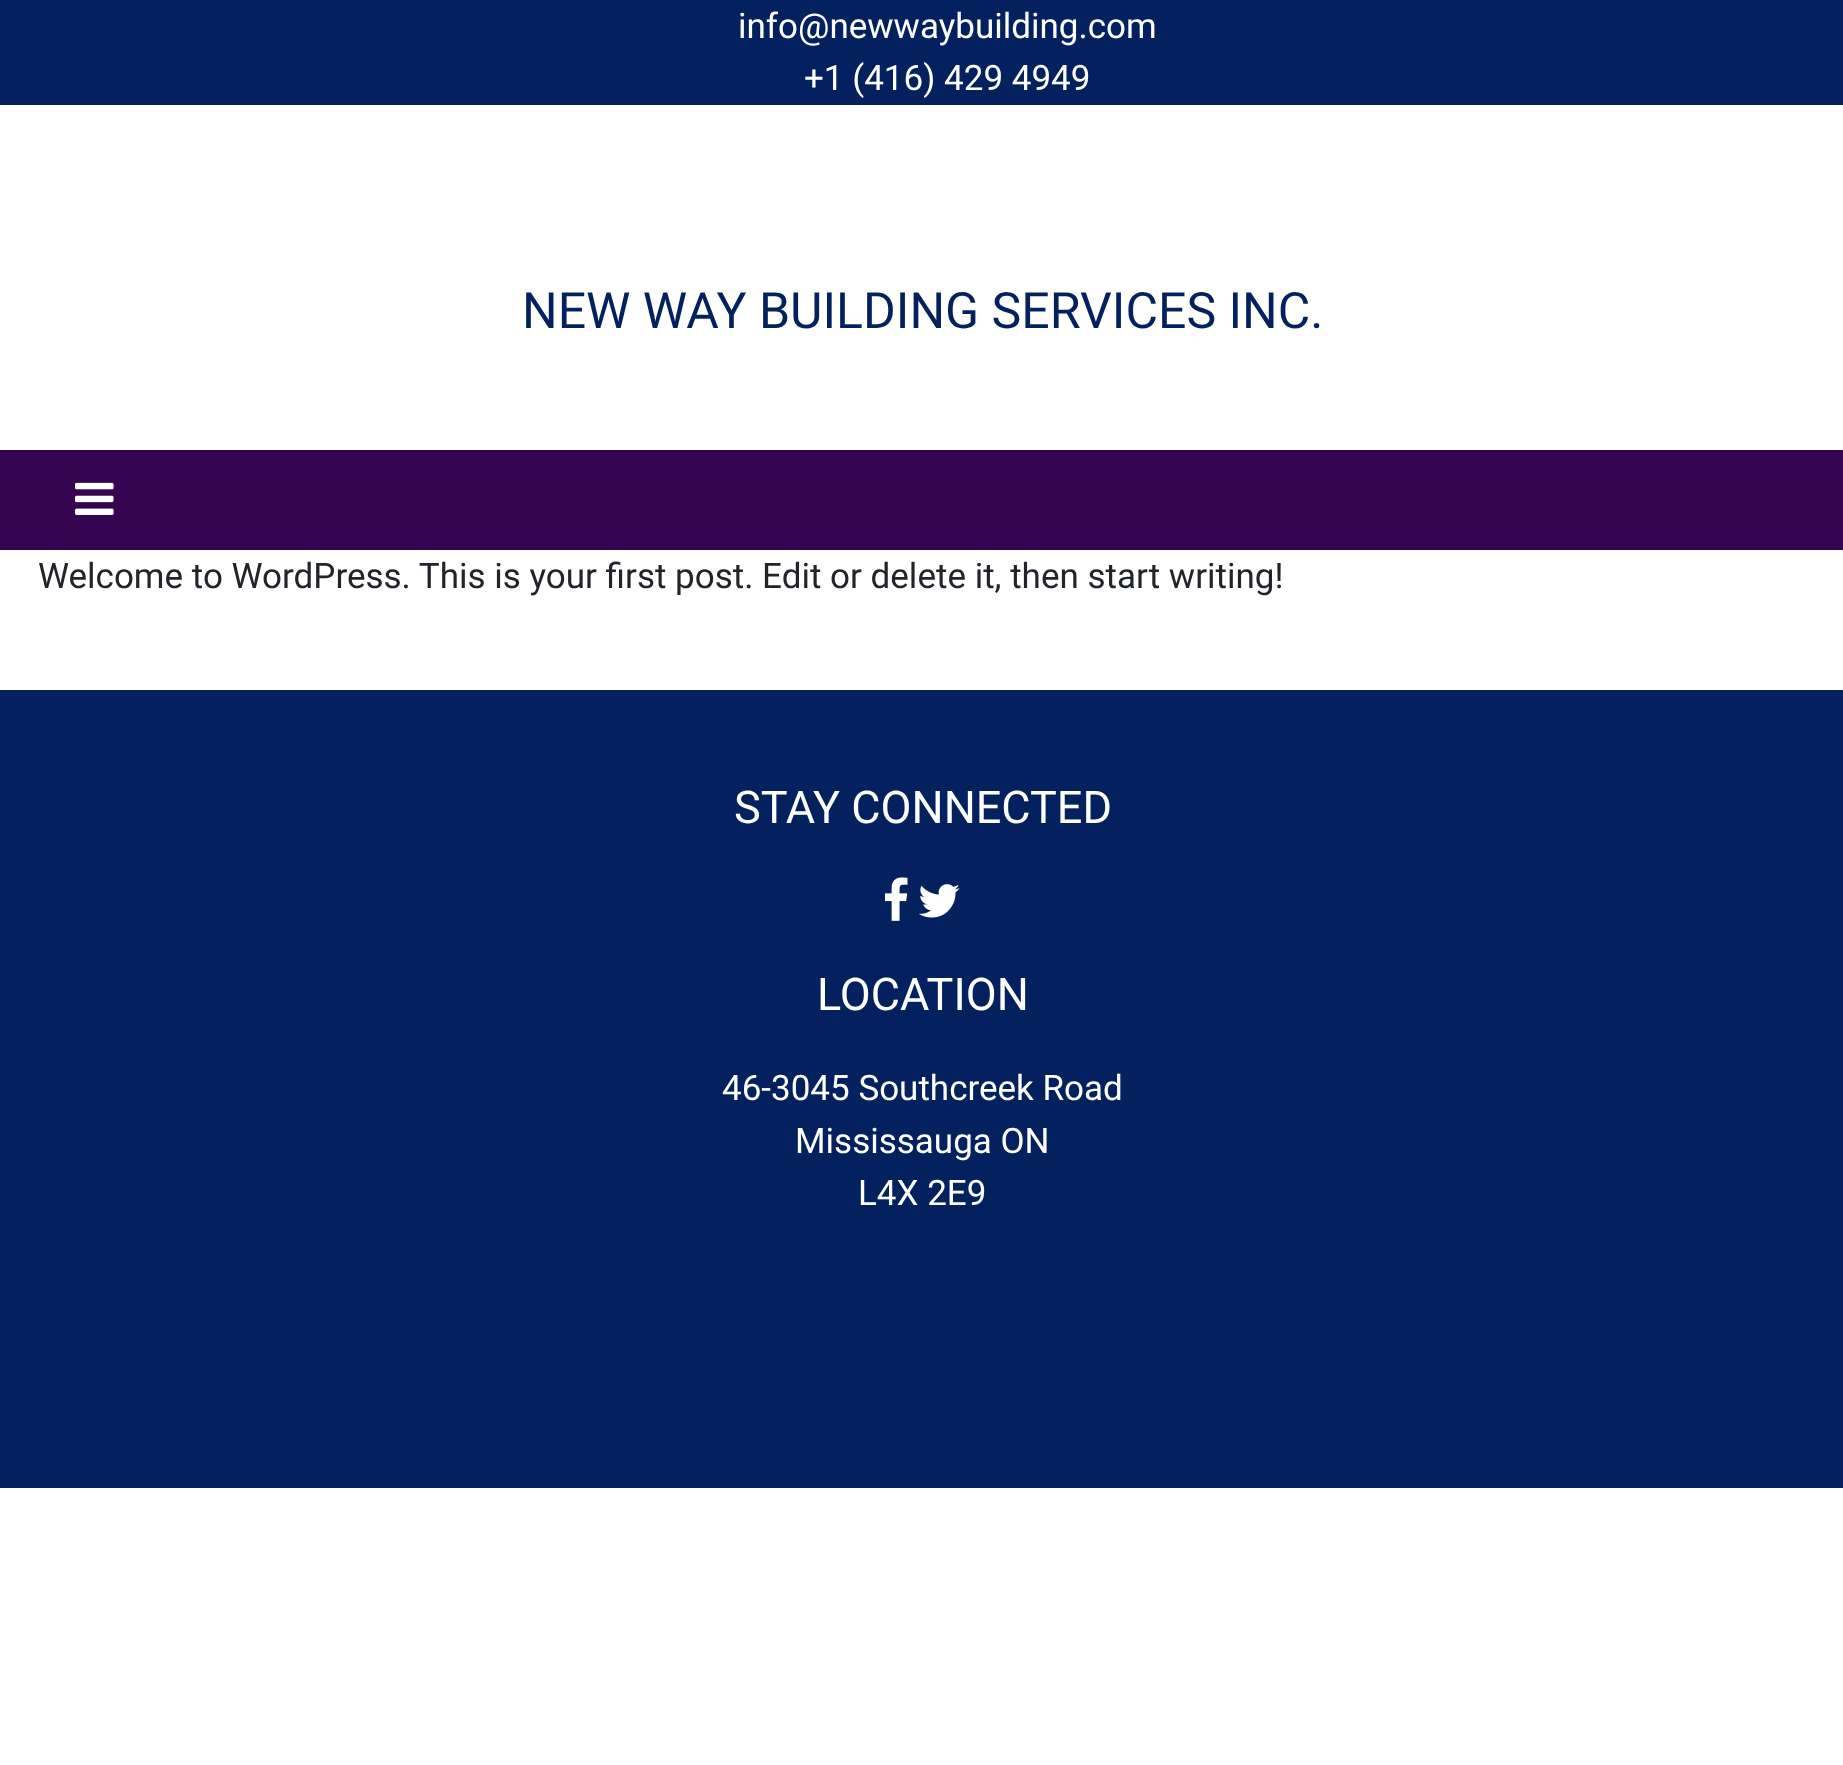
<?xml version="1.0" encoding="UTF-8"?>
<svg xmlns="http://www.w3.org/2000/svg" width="1843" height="1765">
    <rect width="100%" height="100%" fill="#FFFFFF"/>
    <rect x="0" y="0" width="1843" height="105" fill="#03215E"/>
    <text x="738" y="38" font-family="Roboto" font-size="35" fill="#FFFFFF">info@newwaybuilding.com</text>
    <text x="804" y="90" font-family="Roboto" font-size="35" fill="#FFFFFF">+1 (416) 429 4949</text>
    <text x="522" y="328" font-family="Roboto" font-size="50" fill="#03215E">NEW WAY BUILDING SERVICES INC.</text>
    <rect x="0" y="450" width="1843" height="100" fill="#350552"/>
    <image x="75" y="482" width="39" height="33" href="img_01.png"/>
    <text x="38" y="588" font-family="Roboto" font-size="35" fill="#212529">Welcome to WordPress. This is your first post. Edit or delete it, then start writing!</text>
    <rect x="0" y="690" width="1843" height="798" fill="#03215E"/>
    <text x="734" y="823" font-family="Roboto" font-size="45" fill="#FFFFFF">STAY CONNECTED</text>
    <image x="884" y="877" width="24" height="44" href="img_02.png"/>
    <image x="918" y="884" width="42" height="34" href="img_03.png"/>
    <text x="817" y="1010" font-family="Roboto" font-size="45" fill="#FFFFFF">LOCATION</text>
    <text x="722" y="1100" font-family="Roboto" font-size="35" fill="#FFFFFF">46-3045 Southcreek Road</text>
    <text x="795" y="1153" font-family="Roboto" font-size="35" fill="#FFFFFF">Mississauga ON</text>
    <text x="858" y="1205" font-family="Roboto" font-size="35" fill="#FFFFFF">L4X 2E9</text>
</svg>
